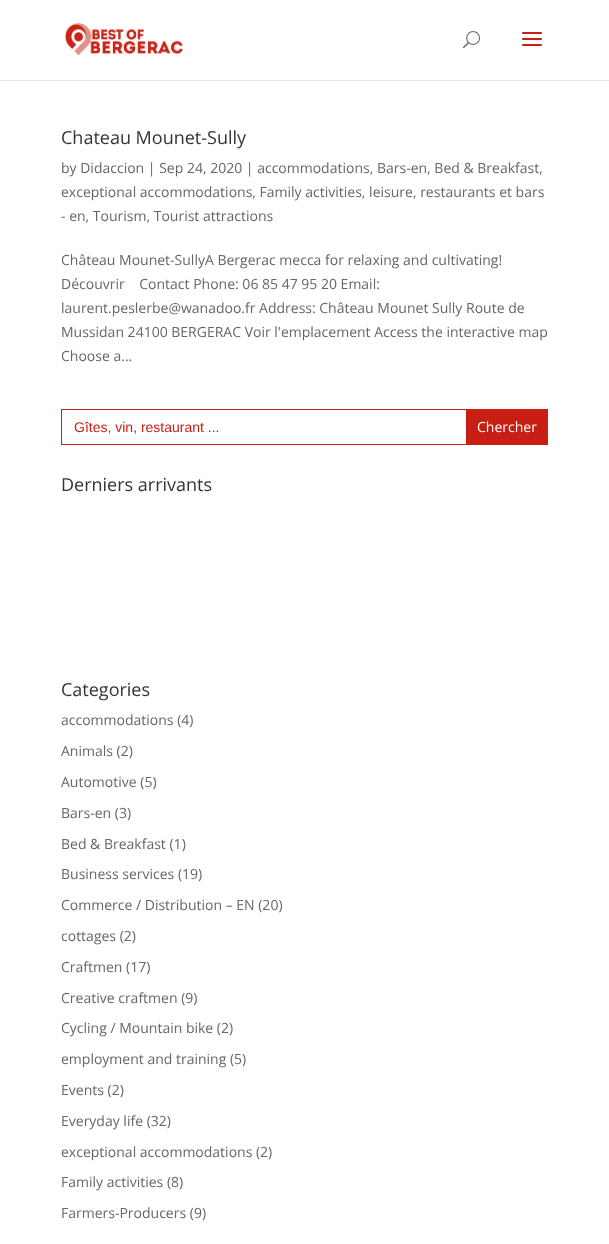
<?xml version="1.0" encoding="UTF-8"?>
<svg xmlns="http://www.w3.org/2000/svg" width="609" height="1244">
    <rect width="100%" height="100%" fill="#FFFFFF"/>
    <rect x="0" y="80" width="609" height="1" fill="#E6E6E6"/>
    <image x="65" y="23" width="118" height="33" href="img_01.png"/>
    <image x="463" y="31" width="17" height="18" href="img_02.png"/>
    <image x="522" y="32" width="20" height="14" href="img_03.png"/>
    <text x="61" y="144" font-family="Open Sans" font-size="18" fill="#333333">Chateau Mounet-Sully</text>
    <text font-family="Open Sans" font-size="14" fill="#666666">
        <tspan x="61" y="173">by Didaccion | Sep 24, 2020 | accommodations, Bars-en, Bed &amp; Breakfast,</tspan>
        <tspan x="61" y="197">exceptional accommodations, Family activities, leisure, restaurants et bars</tspan>
        <tspan x="61" y="221">- en, Tourism, Tourist attractions</tspan>
    </text>
    <text font-family="Open Sans" font-size="14" fill="#666666" xml:space="preserve"><tspan x="61" y="265">Château Mounet-SullyA Bergerac mecca for relaxing and cultivating!</tspan><tspan x="61" y="289">Découvrir    Contact Phone: 06 85 47 95 20 Email:</tspan><tspan x="61" y="313">laurent.peslerbe@wanadoo.fr Address: Château Mounet Sully Route de</tspan><tspan x="61" y="337">Mussidan 24100 BERGERAC Voir l'emplacement Access the interactive map</tspan><tspan x="61" y="361">Choose a...</tspan></text>
    <rect x="61.5" y="409.5" width="486" height="35" fill="none" stroke="#C81E14"/>
    <text x="74" y="432" font-family="Liberation Sans" font-size="14" fill="#C81E14">Gîtes, vin, restaurant ...</text>
    <rect x="466" y="410" width="81" height="34" fill="#C81E14"/>
    <text x="477" y="432" font-family="Open Sans" font-size="14" fill="#FFFFFF">Chercher</text>
    <text x="61" y="491" font-family="Open Sans" font-size="18" fill="#333333">Derniers arrivants</text>
    <text x="61" y="696" font-family="Open Sans" font-size="18" fill="#333333">Categories</text>
    <text x="61" y="725" font-family="Open Sans" font-size="14" fill="#666666">accommodations (4)</text>
    <text x="61" y="756" font-family="Open Sans" font-size="14" fill="#666666">Animals (2)</text>
    <text x="61" y="787" font-family="Open Sans" font-size="14" fill="#666666">Automotive (5)</text>
    <text x="61" y="818" font-family="Open Sans" font-size="14" fill="#666666">Bars-en (3)</text>
    <text x="61" y="849" font-family="Open Sans" font-size="14" fill="#666666">Bed &amp; Breakfast (1)</text>
    <text x="61" y="879" font-family="Open Sans" font-size="14" fill="#666666">Business services (19)</text>
    <text x="61" y="910" font-family="Open Sans" font-size="14" fill="#666666">Commerce / Distribution – EN (20)</text>
    <text x="61" y="941" font-family="Open Sans" font-size="14" fill="#666666">cottages (2)</text>
    <text x="61" y="972" font-family="Open Sans" font-size="14" fill="#666666">Craftmen (17)</text>
    <text x="61" y="1003" font-family="Open Sans" font-size="14" fill="#666666">Creative craftmen (9)</text>
    <text x="61" y="1033" font-family="Open Sans" font-size="14" fill="#666666">Cycling / Mountain bike (2)</text>
    <text x="61" y="1064" font-family="Open Sans" font-size="14" fill="#666666">employment and training (5)</text>
    <text x="61" y="1095" font-family="Open Sans" font-size="14" fill="#666666">Events (2)</text>
    <text x="61" y="1126" font-family="Open Sans" font-size="14" fill="#666666">Everyday life (32)</text>
    <text x="61" y="1157" font-family="Open Sans" font-size="14" fill="#666666">exceptional accommodations (2)</text>
    <text x="61" y="1187" font-family="Open Sans" font-size="14" fill="#666666">Family activities (8)</text>
    <text x="61" y="1218" font-family="Open Sans" font-size="14" fill="#666666">Farmers-Producers (9)</text>
</svg>
